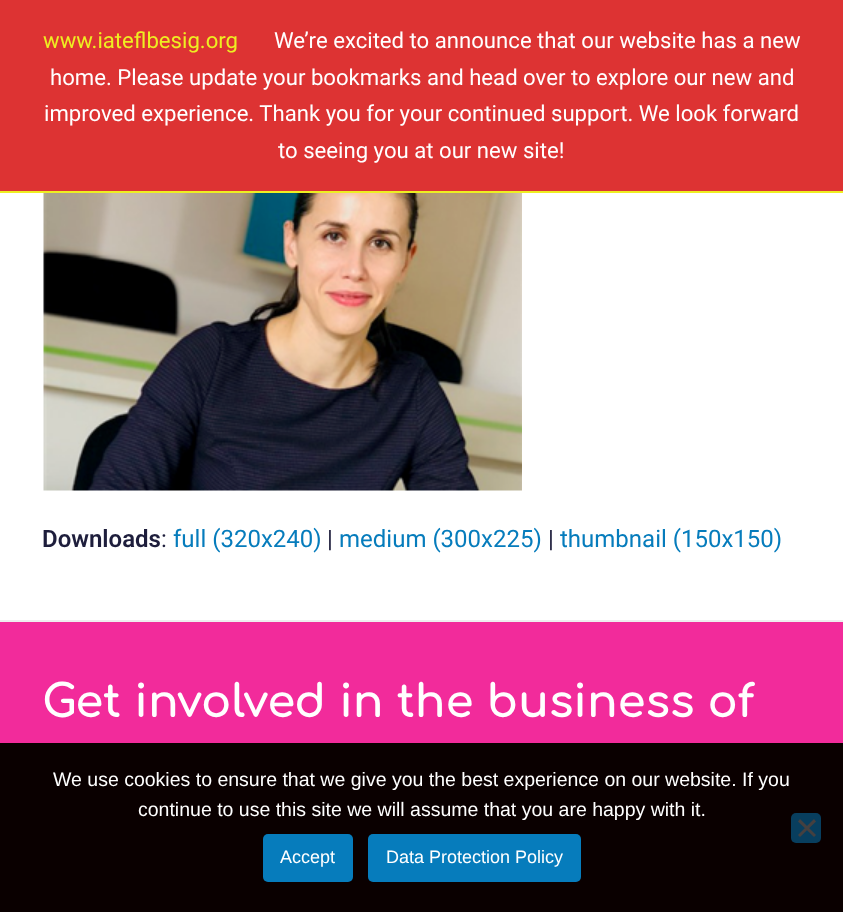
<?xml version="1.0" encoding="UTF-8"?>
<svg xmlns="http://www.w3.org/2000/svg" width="843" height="912">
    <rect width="100%" height="100%" fill="#FFFFFF"/>
    <rect x="0" y="0" width="843" height="191" fill="#DD3333"/>
    <rect x="0" y="191" width="843" height="2" fill="#EEEE22"/>
    <text x="43" y="48" font-family="Roboto" font-size="22.15" fill="#EEEE22">www.iateflbesig.org</text>
    <text x="274" y="48" font-family="Roboto" font-size="22.15" fill="#FFFFFF">We’re excited to announce that our website has a new</text>
    <text x="50" y="85" font-family="Roboto" font-size="22.15" fill="#FFFFFF">home. Please update your bookmarks and head over to explore our new and</text>
    <text x="44" y="121" font-family="Roboto" font-size="22.15" fill="#FFFFFF">improved experience. Thank you for your continued support. We look forward</text>
    <text x="278" y="158" font-family="Roboto" font-size="22.15" fill="#FFFFFF">to seeing you at our new site!</text>
    <image x="43" y="193" width="479" height="298" href="img_01.png"/>
    <text x="42" y="547" font-family="Roboto" font-size="24" font-weight="600" fill="#1E1E3C">Downloads</text>
    <text x="161" y="547" font-family="Roboto" font-size="24" fill="#1E1E3C">:</text>
    <text x="173" y="547" font-family="Roboto" font-size="24" fill="#067CBC">full (320x240)</text>
    <text x="327" y="547" font-family="Roboto" font-size="24" fill="#1E1E3C">|</text>
    <text x="339" y="547" font-family="Roboto" font-size="24" fill="#067CBC">medium (300x225)</text>
    <text x="548" y="547" font-family="Roboto" font-size="24" fill="#1E1E3C">|</text>
    <text x="560" y="547" font-family="Roboto" font-size="24" fill="#067CBC">thumbnail (150x150)</text>
    <rect x="0" y="622" width="843" height="121" fill="#F22B9B"/>
    <rect x="0" y="620" width="843" height="2" fill="#EEEEEE"/>
    <text x="42" y="717" font-family="Comfortaa" font-size="45" font-weight="700" fill="#FFFFFF">Get involved in the business of</text>
    <rect x="0" y="743" width="843" height="169" fill="#0A0000"/>
    <text x="53" y="786" font-family="Liberation Sans" font-size="19.5" fill="#FFFFFF">We use cookies to ensure that we give you the best experience on our website. If you</text>
    <text x="138" y="816" font-family="Liberation Sans" font-size="19.5" fill="#FFFFFF">continue to use this site we will assume that you are happy with it.</text>
    <rect x="791" y="813" width="30" height="30" rx="5" fill="#083E5E"/>
    <path d="M 814 819 L 816 821.5 L 800 837 L 798 835 Z" fill="#454040"/>
    <path d="M 798 821.5 L 800 819 L 816 835 L 814 837 Z" fill="#454040"/>
    <rect x="263" y="834" width="90" height="48" rx="5" fill="#067CBC"/>
    <text x="280" y="863" font-family="Liberation Sans" font-size="18" fill="#FFFFFF">Accept</text>
    <rect x="368" y="834" width="213" height="48" rx="5" fill="#067CBC"/>
    <text x="386" y="863" font-family="Liberation Sans" font-size="18" fill="#FFFFFF">Data Protection Policy</text>
</svg>
